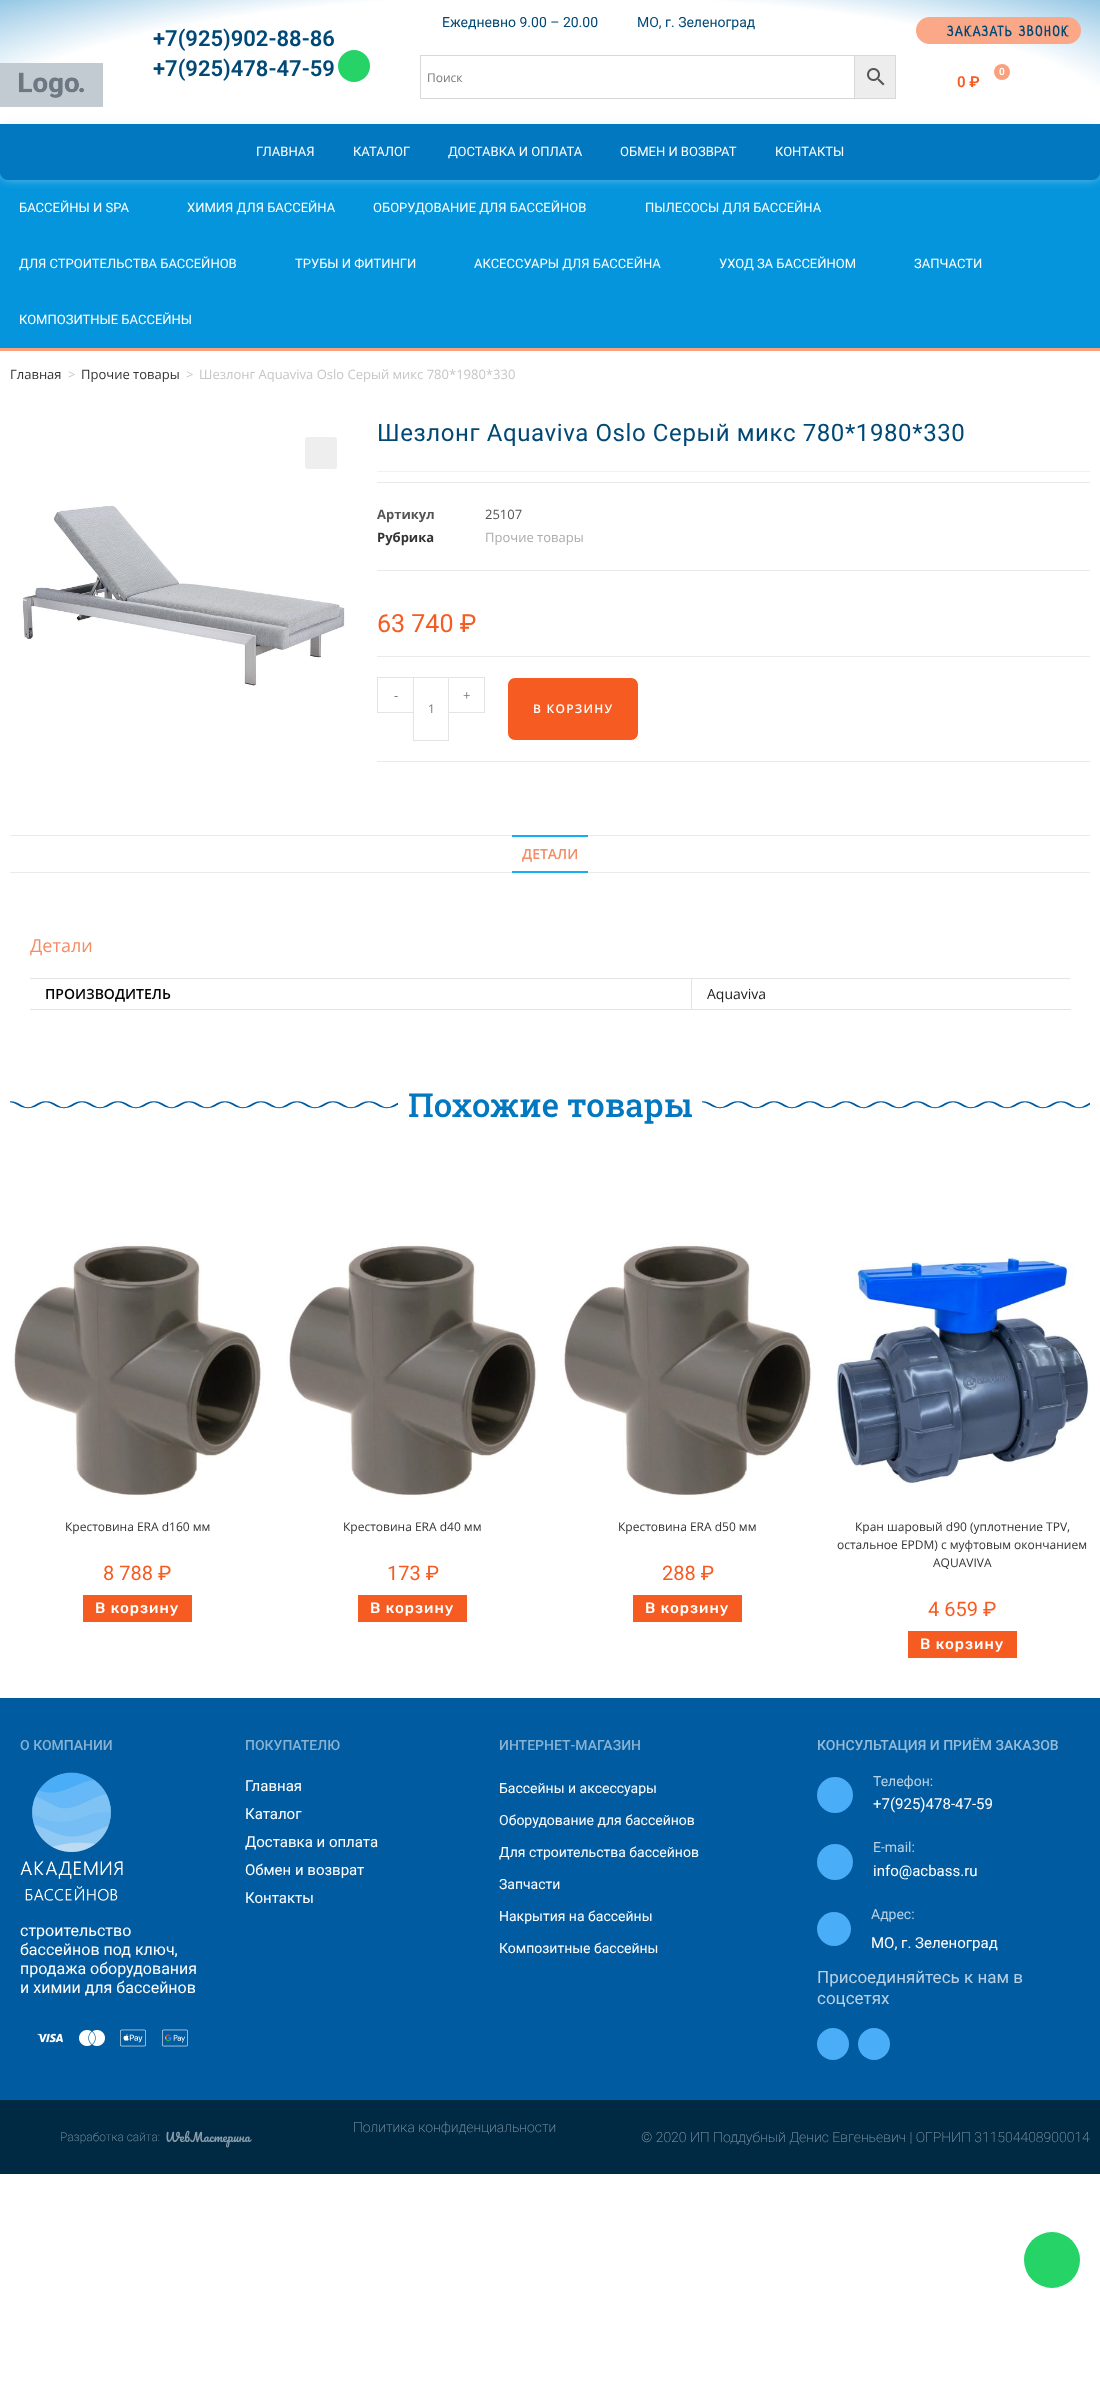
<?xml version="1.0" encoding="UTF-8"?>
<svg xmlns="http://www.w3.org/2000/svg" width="1100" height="2388">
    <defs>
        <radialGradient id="g1" gradientUnits="userSpaceOnUse" cx="0" cy="0" r="1" gradientTransform="matrix(778 0 0 175 550 124)"><stop offset="0.73" stop-color="#FFFFFF"/><stop offset="1" stop-color="#95C7E5"/></radialGradient>
        <filter id="blur1" x="-50%" y="-200%" width="200%" height="500%"><feGaussianBlur stdDeviation="5"/></filter>
    </defs>
    <rect width="100%" height="100%" fill="#FFFFFF"/>
    <rect x="0" y="0" width="1100" height="86" fill="url(#g1)"/>
    <image x="0" y="63" width="103" height="44" href="img_01.png"/>
    <text font-family="Roboto" font-size="22" font-weight="600" fill="#004876">
        <tspan x="153" y="46">+7(925)902-88-86</tspan>
        <tspan x="153" y="76">+7(925)478-47-59</tspan>
    </text>
    <circle cx="354" cy="66" r="16" fill="#25D366"/>
    <text x="442" y="27" font-family="Roboto" font-size="14" fill="#004876">Ежедневно 9.00 – 20.00</text>
    <text x="637" y="27" font-family="Roboto" font-size="14" fill="#004876">МО, г. Зеленоград</text>
    <rect x="854.5" y="55.5" width="41" height="43" fill="#EDEDED" stroke="#D8D8D8"/>
    <rect x="420.5" y="55.5" width="434" height="43" fill="none" stroke="#D8D8D8"/>
    <text x="427" y="82" font-family="Open Sans" font-size="12" fill="#777777">Поиск</text>
    <image x="867" y="68" width="18" height="18" href="img_02.png"/>
    <rect x="917" y="18" width="163" height="25" rx="12.5" fill="#FBA888" stroke="#FBA888" stroke-width="2"/>
    <text x="947" y="36" font-family="Neucha" font-size="14" font-weight="700" letter-spacing="1.6" fill="#004876">ЗАКАЗАТЬ ЗВОНОК</text>
    <circle cx="1002" cy="72" r="8" fill="#F9A07C"/>
    <text x="999" y="75" font-family="Roboto" font-size="10" font-weight="600" fill="#FFFFFF">0</text>
    <text x="957" y="87" font-family="Roboto" font-size="15" font-weight="600" fill="#F65C21">0 ₽</text>
    <rect x="0" y="172" width="1100" height="176" fill="#0495DD"/>
    <rect x="0" y="348" width="1100" height="3" fill="#F9A07C"/>
    <rect x="0" y="124" width="1100" height="56" rx="8" fill="#CEE4F1" fill-opacity="0.46" filter="url(#blur1)"/>
    <path d="M 0 124 H 1100 V 172 C 1100 176.5 1096.5 180 1092 180 H 8 C 3.5 180 0 176.5 0 172 Z" fill="#0278C1"/>
    <text x="256" y="156" font-family="Roboto" font-size="13" fill="#FFFFFF">ГЛАВНАЯ</text>
    <text x="353" y="156" font-family="Roboto" font-size="13" fill="#FFFFFF">КАТАЛОГ</text>
    <text x="448" y="156" font-family="Roboto" font-size="13" fill="#FFFFFF">ДОСТАВКА И ОПЛАТА</text>
    <text x="620" y="156" font-family="Roboto" font-size="13" fill="#FFFFFF">ОБМЕН И ВОЗВРАТ</text>
    <text x="775" y="156" font-family="Roboto" font-size="13" fill="#FFFFFF">КОНТАКТЫ</text>
    <text x="19" y="212" font-family="Roboto" font-size="13" fill="#FFFFFF">БАССЕЙНЫ И SPA</text>
    <text x="187" y="212" font-family="Roboto" font-size="13" fill="#FFFFFF">ХИМИЯ ДЛЯ БАССЕЙНА</text>
    <text x="373" y="212" font-family="Roboto" font-size="13" fill="#FFFFFF">ОБОРУДОВАНИЕ ДЛЯ БАССЕЙНОВ</text>
    <text x="645" y="212" font-family="Roboto" font-size="13" fill="#FFFFFF">ПЫЛЕСОСЫ ДЛЯ БАССЕЙНА</text>
    <text x="19" y="268" font-family="Roboto" font-size="13" fill="#FFFFFF">ДЛЯ СТРОИТЕЛЬСТВА БАССЕЙНОВ</text>
    <text x="295" y="268" font-family="Roboto" font-size="13" fill="#FFFFFF">ТРУБЫ И ФИТИНГИ</text>
    <text x="474" y="268" font-family="Roboto" font-size="13" fill="#FFFFFF">АКСЕССУАРЫ ДЛЯ БАССЕЙНА</text>
    <text x="719" y="268" font-family="Roboto" font-size="13" fill="#FFFFFF">УХОД ЗА БАССЕЙНОМ</text>
    <text x="914" y="268" font-family="Roboto" font-size="13" fill="#FFFFFF">ЗАПЧАСТИ</text>
    <text x="19" y="324" font-family="Roboto" font-size="13" fill="#FFFFFF">КОМПОЗИТНЫЕ БАССЕЙНЫ</text>
    <text x="10" y="379" font-family="Open Sans" font-size="13" fill="#333333">Главная</text>
    <text x="68" y="379" font-family="Open Sans" font-size="13" fill="#C6C6C6">&gt;</text>
    <text x="81" y="379" font-family="Open Sans" font-size="13" fill="#333333">Прочие товары</text>
    <text x="186" y="379" font-family="Open Sans" font-size="13" fill="#C6C6C6">&gt;</text>
    <text x="199" y="379" font-family="Open Sans" font-size="13" fill="#C6C6C6">Шезлонг Aquaviva Oslo Серый микс 780*1980*330</text>
    <rect x="305" y="437" width="32" height="32" rx="3" fill="#EEEEEE"/>
    <image x="22" y="506" width="323" height="180" href="img_03.png"/>
    <rect x="377" y="471" width="713" height="1" fill="#F1F1F1"/>
    <text x="377" y="441" font-family="Roboto" font-size="24" letter-spacing="0.6" fill="#004876">Шезлонг Aquaviva Oslo Серый микс 780*1980*330</text>
    <rect x="377" y="482" width="713" height="1" fill="#EAEAEA"/>
    <rect x="377" y="570" width="713" height="1" fill="#EAEAEA"/>
    <text x="377" y="519" font-family="Open Sans" font-size="13" font-weight="700" fill="#555555">Артикул</text>
    <text x="485" y="519" font-family="Open Sans" font-size="13" fill="#555555">25107</text>
    <text x="377" y="542" font-family="Open Sans" font-size="13" font-weight="700" fill="#333333">Рубрика</text>
    <text x="485" y="542" font-family="Open Sans" font-size="13" fill="#ABABAB">Прочие товары</text>
    <text x="377" y="632" font-family="Roboto" font-size="25" fill="#F65C21">63 740 ₽</text>
    <rect x="377" y="656" width="713" height="1" fill="#EAEAEA"/>
    <rect x="377" y="761" width="713" height="1" fill="#EAEAEA"/>
    <rect x="377" y="677" width="36" height="1" fill="#E4E4E4"/>
    <rect x="377" y="712" width="36" height="1" fill="#E4E4E4"/>
    <rect x="377" y="677" width="1" height="36" fill="#E4E4E4"/>
    <text x="394" y="700" font-family="Open Sans" font-size="13" fill="#777777">-</text>
    <rect x="449" y="677" width="36" height="1" fill="#E4E4E4"/>
    <rect x="484" y="677" width="1" height="36" fill="#E4E4E4"/>
    <rect x="449" y="712" width="36" height="1" fill="#E4E4E4"/>
    <text x="463" y="700" font-family="Open Sans" font-size="13" fill="#777777">+</text>
    <rect x="413.5" y="677.5" width="35" height="63" fill="none" stroke="#E4E4E4"/>
    <text x="428" y="713" font-family="Open Sans" font-size="12" fill="#777777">1</text>
    <rect x="507.5" y="677.5" width="131" height="63" rx="7.5" fill="#F65C21" stroke="#FFFFFF"/>
    <text x="533" y="713" font-family="Open Sans" font-size="12" font-weight="600" letter-spacing="1.25" fill="#FFFFFF">В КОРЗИНУ</text>
    <rect x="10" y="835" width="1080" height="1" fill="#EAEAEA"/>
    <rect x="10" y="872" width="1080" height="1" fill="#EAEAEA"/>
    <rect x="512" y="835" width="76" height="2" fill="#13AFF0"/>
    <rect x="512" y="871" width="76" height="2" fill="#13AFF0"/>
    <text x="522" y="859" font-family="Open Sans" font-size="14" font-weight="600" fill="#F48D66">ДЕТАЛИ</text>
    <text x="30" y="952" font-family="Open Sans" font-size="18" fill="#F48D66">Детали</text>
    <rect x="30" y="978" width="1040" height="1" fill="#E4E4E4"/>
    <rect x="691" y="1009" width="380" height="1" fill="#E4E4E4"/>
    <rect x="691" y="978" width="1" height="32" fill="#E4E4E4"/>
    <rect x="30" y="1009" width="662" height="1" fill="#E4E4E4"/>
    <text x="45" y="999" font-family="Open Sans" font-size="14" font-weight="600" fill="#000000">ПРОИЗВОДИТЕЛЬ</text>
    <text x="707" y="999" font-family="Open Sans" font-size="14" fill="#202020">Aquaviva</text>
    <image x="10" y="1101" width="388" height="8" href="img_04.png"/>
    <text x="408" y="1117" font-family="Roboto Slab" font-size="33" font-weight="500" fill="#0278C1">Похожие товары</text>
    <image x="702" y="1101" width="388" height="8" href="img_04.png"/>
    <image x="11" y="1243" width="253" height="254" href="img_05.png"/>
    <text x="65" y="1531" font-family="Open Sans" font-size="12" fill="#333333">Крестовина ERA d160 мм</text>
    <text x="103" y="1580" font-family="Roboto" font-size="20" fill="#F65C21">8 788 ₽</text>
    <rect x="83" y="1595" width="109" height="27" fill="#F65C21"/>
    <text x="95" y="1613" font-family="Rubik" font-size="15" font-weight="500" letter-spacing="1" fill="#FFFFFF">В корзину</text>
    <image x="286" y="1243" width="253" height="254" href="img_06.png"/>
    <text x="343" y="1531" font-family="Open Sans" font-size="12" fill="#333333">Крестовина ERA d40 мм</text>
    <text x="387" y="1580" font-family="Roboto" font-size="20" fill="#F65C21">173 ₽</text>
    <rect x="358" y="1595" width="109" height="27" fill="#F65C21"/>
    <text x="370" y="1613" font-family="Rubik" font-size="15" font-weight="500" letter-spacing="1" fill="#FFFFFF">В корзину</text>
    <image x="561" y="1243" width="253" height="254" href="img_06.png"/>
    <text x="618" y="1531" font-family="Open Sans" font-size="12" fill="#333333">Крестовина ERA d50 мм</text>
    <text x="662" y="1580" font-family="Roboto" font-size="20" fill="#F65C21">288 ₽</text>
    <rect x="633" y="1595" width="109" height="27" fill="#F65C21"/>
    <text x="645" y="1613" font-family="Rubik" font-size="15" font-weight="500" letter-spacing="1" fill="#FFFFFF">В корзину</text>
    <image x="835" y="1253" width="255" height="231" href="img_07.png"/>
    <text x="855" y="1531" font-family="Open Sans" font-size="12" fill="#333333">Кран шаровый d90 (уплотнение TPV,</text>
    <text x="837" y="1549" font-family="Open Sans" font-size="12" fill="#333333">остальное EPDM) с муфтовым окончанием</text>
    <text x="933" y="1567" font-family="Open Sans" font-size="12" fill="#333333">AQUAVIVA</text>
    <text x="928" y="1616" font-family="Roboto" font-size="20" fill="#F65C21">4 659 ₽</text>
    <rect x="908" y="1631" width="109" height="27" fill="#F65C21"/>
    <text x="920" y="1649" font-family="Rubik" font-size="15" font-weight="500" letter-spacing="1" fill="#FFFFFF">В корзину</text>
    <rect x="0" y="1698" width="1100" height="402" fill="#005BA0"/>
    <text x="20" y="1750" font-family="Roboto" font-size="14" font-weight="500" fill="#87B2D2">О КОМПАНИИ</text>
    <image x="20" y="1772" width="103" height="129" href="img_08.png"/>
    <text font-family="Roboto" font-size="16" fill="#FFFFFF">
        <tspan x="20" y="1936">строительство</tspan>
        <tspan x="20" y="1955">бассейнов под ключ,</tspan>
        <tspan x="20" y="1974">продажа оборудования</tspan>
        <tspan x="20" y="1993">и химии для бассейнов</tspan>
    </text>
    <image x="37" y="2033" width="26" height="10" href="img_09.png"/>
    <image x="79" y="2030" width="26" height="16" href="img_10.png"/>
    <image x="120" y="2029" width="26" height="18" href="img_11.png"/>
    <image x="162" y="2029" width="26" height="18" href="img_12.png"/>
    <text x="245" y="1750" font-family="Roboto" font-size="14" font-weight="500" fill="#87B2D2">ПОКУПАТЕЛЮ</text>
    <text font-family="Roboto" font-size="15" fill="#FFFFFF">
        <tspan x="245" y="1791">Главная</tspan>
        <tspan x="245" y="1819">Каталог</tspan>
        <tspan x="245" y="1847">Доставка и оплата</tspan>
        <tspan x="245" y="1875">Обмен и возврат</tspan>
        <tspan x="245" y="1903">Контакты</tspan>
    </text>
    <text x="499" y="1750" font-family="Roboto" font-size="14" font-weight="500" fill="#87B2D2">ИНТЕРНЕТ-МАГАЗИН</text>
    <text x="499" y="1793" font-family="Roboto" font-size="14" fill="#FFFFFF">Бассейны и аксессуары</text>
    <text x="499" y="1825" font-family="Roboto" font-size="14" fill="#FFFFFF">Оборудование для бассейнов</text>
    <text x="499" y="1857" font-family="Roboto" font-size="14" fill="#FFFFFF">Для строительства бассейнов</text>
    <text x="499" y="1889" font-family="Roboto" font-size="14" fill="#FFFFFF">Запчасти</text>
    <text x="499" y="1921" font-family="Roboto" font-size="14" fill="#FFFFFF">Накрытия на бассейны</text>
    <text x="499" y="1953" font-family="Roboto" font-size="14" fill="#FFFFFF">Композитные бассейны</text>
    <text x="817" y="1750" font-family="Roboto" font-size="14" font-weight="500" fill="#96BCD8">КОНСУЛЬТАЦИЯ И ПРИЁМ ЗАКАЗОВ</text>
    <circle cx="835" cy="1795" r="18" fill="#4AADF7"/>
    <text x="873" y="1786" font-family="Roboto" font-size="14" fill="#B8D1E4">Телефон:</text>
    <text x="873" y="1809" font-family="Roboto" font-size="15" fill="#FFFFFF">+7(925)478-47-59</text>
    <circle cx="835" cy="1862" r="18" fill="#4AADF7"/>
    <text x="873" y="1852" font-family="Roboto" font-size="14" fill="#B8D1E4">E-mail:</text>
    <text x="873" y="1876" font-family="Roboto" font-size="15" fill="#FFFFFF">info@acbass.ru</text>
    <circle cx="834" cy="1929" r="17" fill="#4AADF7"/>
    <text x="871" y="1919" font-family="Roboto" font-size="14" fill="#B8D1E4">Адрес:</text>
    <text x="871" y="1948" font-family="Roboto" font-size="15" fill="#FFFFFF">МО, г. Зеленоград</text>
    <text font-family="Roboto" font-size="17" fill="#B8D1E4">
        <tspan x="817" y="1983">Присоединяйтесь к нам в</tspan>
        <tspan x="817" y="2004">соцсетях</tspan>
    </text>
    <circle cx="833" cy="2044" r="16" fill="#4AADF7"/>
    <circle cx="874" cy="2044" r="16" fill="#4AADF7"/>
    <rect x="0" y="2100" width="1100" height="74" fill="#002A44"/>
    <text x="353" y="2132" font-family="Roboto" font-size="14" font-weight="200" fill="#8A9DA9">Политика конфиденциальности</text>
    <circle cx="1052" cy="2260" r="28" fill="#25D366"/>
    <text x="60" y="2141" font-family="Roboto" font-size="12" font-weight="200" fill="#8A9DA9">Разработка сайта:</text>
    <text x="165" y="2142" font-family="Pacifico" font-size="12" fill="#8A9DA9">WebМастерина</text>
    <text x="641" y="2142" font-family="Roboto" font-size="14" font-weight="200" fill="#8A9DA9">© 2020 ИП Поддубный Денис Евгеньевич | ОГРНИП 311504408900014</text>
</svg>
